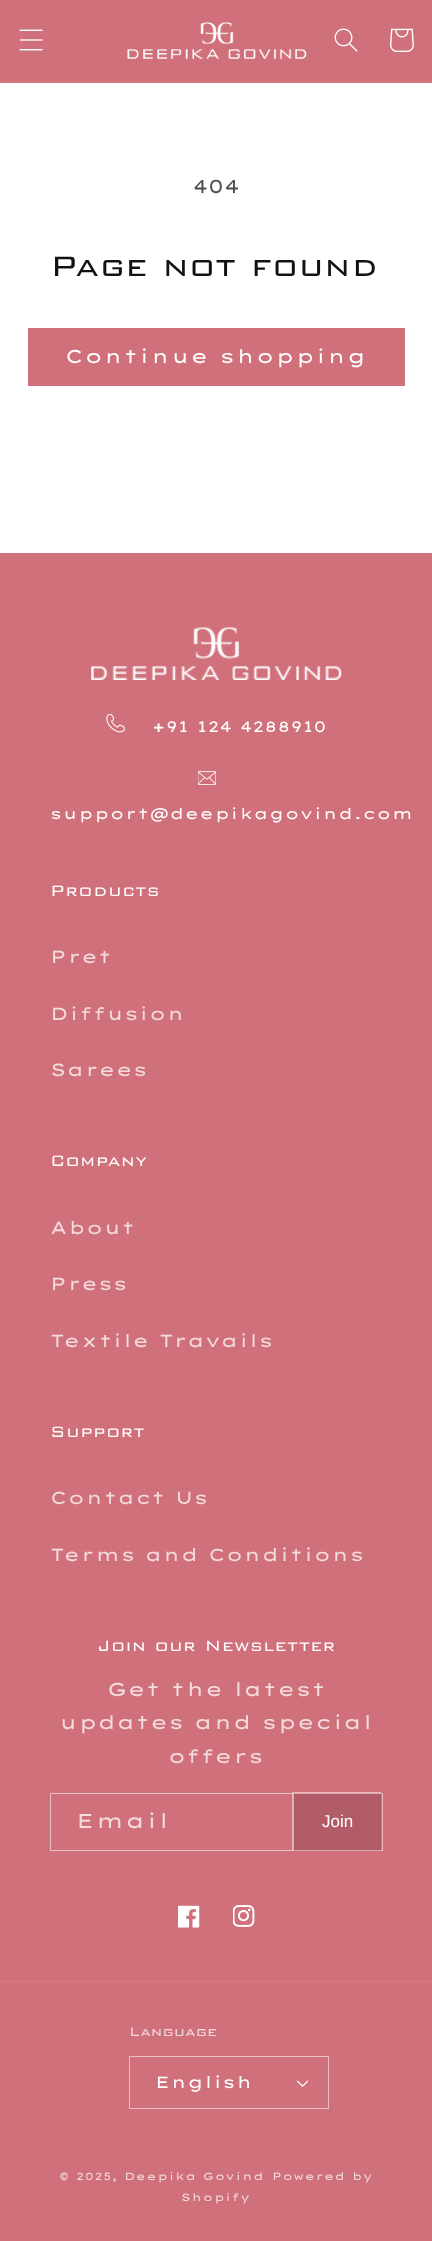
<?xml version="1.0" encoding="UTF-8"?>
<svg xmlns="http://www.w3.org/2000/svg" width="432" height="2241">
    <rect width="100%" height="100%" fill="#FFFFFF"/>
    <rect x="0" y="0" width="432" height="83" fill="#D0707B"/>
    <rect x="0" y="81" width="432" height="1" fill="#D47B86"/>
    <image x="19" y="29" width="24" height="22" href="img_01.png"/>
    <image x="127" y="22" width="180" height="37" href="img_02.png"/>
    <image x="334" y="28" width="24" height="24" href="img_03.png"/>
    <image x="390" y="28" width="24" height="24" href="img_04.png"/>
    <text x="193" y="193" font-family="Lexend Zetta" font-size="18.75" letter-spacing="0.75" fill="#4D4D4D">404</text>
    <text x="50" y="276" font-family="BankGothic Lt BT" font-size="37.5" font-weight="300" letter-spacing="0.75" fill="#121212">Page not found</text>
    <rect x="28" y="328" width="377" height="58" fill="#D0707B"/>
    <text x="65" y="363" font-family="Lexend Zetta" font-size="18.75" letter-spacing="1.25" fill="#FFFFFF">Continue shopping</text>
    <rect x="0" y="553" width="432" height="1688" fill="#D0707B"/>
    <image x="91" y="627" width="251" height="53" href="img_05.png"/>
    <image x="106" y="714" width="19" height="19" href="img_06.png"/>
    <text x="152" y="732" font-family="Lexend Zetta" font-size="15" letter-spacing="0.75" fill="#FFFFFF">+91 124 4288910</text>
    <image x="198" y="771" width="18" height="14" href="img_07.png"/>
    <text x="50" y="819" font-family="Lexend Zetta" font-size="15" letter-spacing="0.75" fill="#FFFFFF">support@deepikagovind.com</text>
    <text x="50" y="896" font-family="BankGothic Lt BT" font-size="20" font-weight="300" letter-spacing="0.75" fill="#FFFFFF">Products</text>
    <text x="50" y="963" font-family="Lexend Zetta" font-size="17.5" letter-spacing="0.75" fill="#F3DBDE">Pret</text>
    <text x="50" y="1020" font-family="Lexend Zetta" font-size="17.5" letter-spacing="0.75" fill="#F3DBDE">Diffusion</text>
    <text x="50" y="1076" font-family="Lexend Zetta" font-size="17.5" letter-spacing="0.75" fill="#F3DBDE">Sarees</text>
    <text x="50" y="1166" font-family="BankGothic Lt BT" font-size="20" font-weight="300" letter-spacing="0.75" fill="#FFFFFF">Company</text>
    <text x="50" y="1234" font-family="Lexend Zetta" font-size="17.5" letter-spacing="0.75" fill="#F3DBDE">About</text>
    <text x="50" y="1290" font-family="Lexend Zetta" font-size="17.5" letter-spacing="0.75" fill="#F3DBDE">Press</text>
    <text x="50" y="1347" font-family="Lexend Zetta" font-size="17.5" letter-spacing="0.75" fill="#F3DBDE">Textile Travails</text>
    <text x="50" y="1437" font-family="BankGothic Lt BT" font-size="20" font-weight="300" letter-spacing="0.75" fill="#FFFFFF">Support</text>
    <text x="50" y="1504" font-family="Lexend Zetta" font-size="17.5" letter-spacing="0.75" fill="#F3DBDE">Contact Us</text>
    <text x="50" y="1561" font-family="Lexend Zetta" font-size="17.5" letter-spacing="0.75" fill="#F3DBDE">Terms and Conditions</text>
    <text x="97" y="1651" font-family="BankGothic Lt BT" font-size="20" font-weight="300" letter-spacing="0.75" fill="#FFFFFF">Join our Newsletter</text>
    <text x="107" y="1696" font-family="Lexend Zetta" font-size="18.75" letter-spacing="0.75" fill="#F3DBDE">Get the latest</text>
    <text x="59" y="1729" font-family="Lexend Zetta" font-size="18.75" letter-spacing="0.75" fill="#F3DBDE">updates and special</text>
    <text x="168" y="1763" font-family="Lexend Zetta" font-size="18.75" letter-spacing="0.75" fill="#F3DBDE">offers</text>
    <rect x="50.5" y="1793.5" width="332" height="57" fill="none" stroke="#EABFC4"/>
    <text x="76" y="1828" font-family="Lexend Zetta" font-size="20" letter-spacing="1.25" fill="#F3DBDE">Email</text>
    <rect x="293" y="1793" width="88" height="58" fill="#B15C66"/>
    <path d="M 292 1792 H 381 V 1794 H 294 Z" fill="#FFFFFF" fill-opacity="0.5"/>
    <path d="M 381 1851 H 292 L 294 1850 H 381 Z" fill="#D8ADB2"/>
    <path d="M 292 1851 V 1792 L 294 1794 V 1850 Z" fill="#FFFFFF" fill-opacity="0.5"/>
    <text x="322" y="1827" font-family="Liberation Sans" font-size="17" fill="#FFFFFF">Join</text>
    <image x="178" y="1905" width="22" height="23" href="img_08.png"/>
    <image x="233" y="1905" width="22" height="22" href="img_09.png"/>
    <rect x="0" y="1981" width="432" height="1" fill="#D47B86"/>
    <text x="129" y="2036" font-family="BankGothic Lt BT" font-size="16.25" font-weight="300" letter-spacing="0.5" fill="#F3DBDE">Language</text>
    <image x="296" y="2080" width="13" height="7" href="img_10.png"/>
    <rect x="129.5" y="2056.5" width="199" height="52" fill="none" stroke="#EABFC4"/>
    <text x="155" y="2088" font-family="Lexend Zetta" font-size="16.25" letter-spacing="0.5" fill="#FFFFFF">English</text>
    <text x="59" y="2180" font-family="Lexend Zetta" font-size="10.4" letter-spacing="0.9" fill="#F3DBDE">© 2025, Deepika Govind</text>
    <text x="272" y="2180" font-family="Lexend Zetta" font-size="10.4" letter-spacing="0.9" fill="#F3DBDE">Powered by</text>
    <text x="181" y="2201" font-family="Lexend Zetta" font-size="10.4" letter-spacing="0.9" fill="#F3DBDE">Shopify</text>
</svg>
